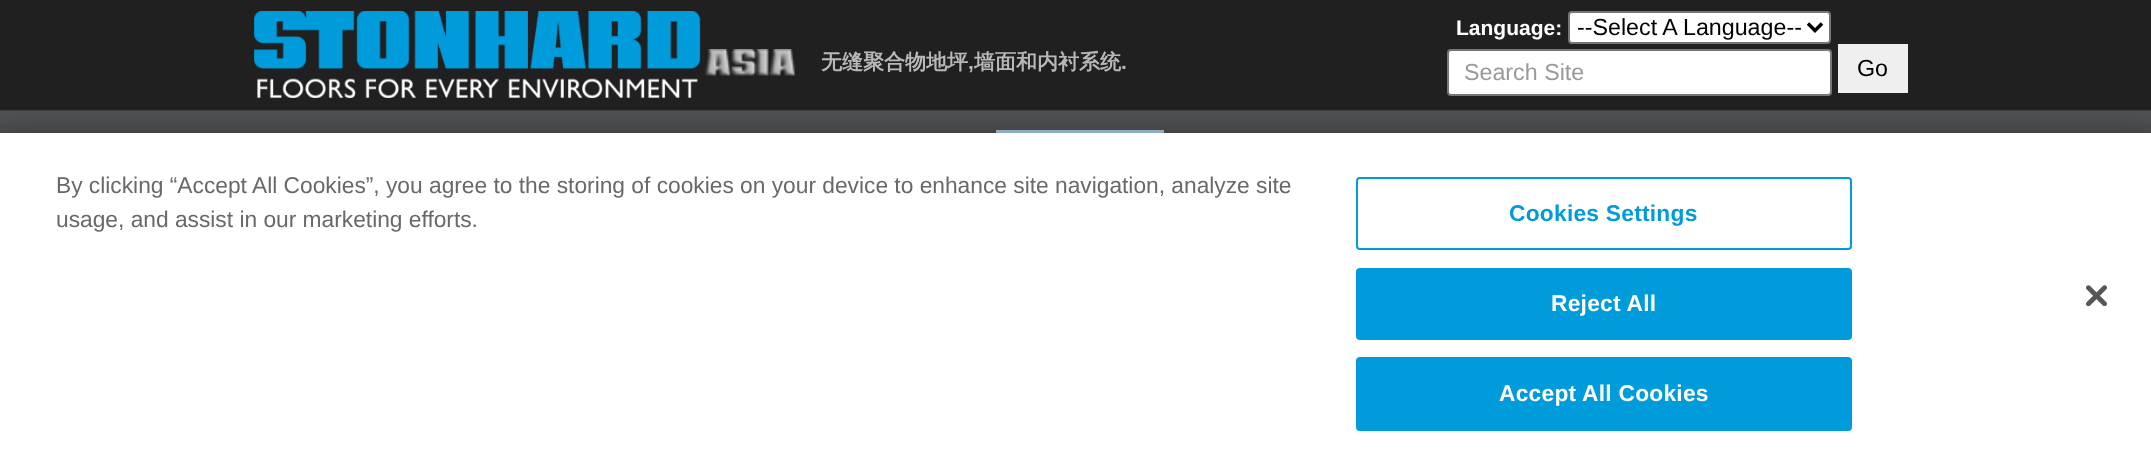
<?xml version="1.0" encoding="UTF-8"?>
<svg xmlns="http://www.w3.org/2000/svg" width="2151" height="464">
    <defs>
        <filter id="blur1" x="-50%" y="-200%" width="200%" height="500%"><feGaussianBlur stdDeviation="16"/></filter>
    </defs>
    <rect width="100%" height="100%" fill="#FFFFFF"/>
    <image x="0" y="0" width="2151" height="133" href="img_01.png"/>
    <image x="254" y="11" width="447" height="87" href="img_02.png"/>
    <text x="1456" y="35" font-family="Liberation Sans" font-size="21" font-weight="700" fill="#FFFFFF">Language:</text>
    <rect x="1569" y="12" width="261" height="31" rx="3" fill="#FFFFFF" stroke="#767676" stroke-width="2"/>
    <path d="M 1808 23.5 L 1815 30.5 L 1822 23.5" fill="none" stroke="#000000" stroke-width="3.5"/>
    <text x="1577" y="35" font-family="Liberation Sans" font-size="23.25" fill="#000000">--Select A Language--</text>
    <image x="705" y="49" width="90" height="27" href="img_03.png"/>
    <text x="821" y="69" font-family="WenQuanYi Zen Hei" font-size="21" font-weight="700" fill="#B8B8B9">无缝聚合物地坪</text>
    <text x="968" y="69" font-family="Liberation Sans" font-size="21" font-weight="700" fill="#B8B8B9">,</text>
    <text x="974" y="69" font-family="WenQuanYi Zen Hei" font-size="21" font-weight="700" fill="#B8B8B9">墙面和内衬系统</text>
    <text x="1121" y="69" font-family="Liberation Sans" font-size="21" font-weight="700" fill="#B8B8B9">.</text>
    <rect x="1448" y="50" width="383" height="45" rx="3" fill="#FFFFFF" stroke="#767676" stroke-width="2"/>
    <text x="1464" y="80" font-family="Liberation Sans" font-size="23.25" fill="#999999">Search Site</text>
    <rect x="1838" y="44" width="70" height="49" fill="#EFEFEF"/>
    <text x="1857" y="76" font-family="Liberation Sans" font-size="23.25" fill="#000000">Go</text>
    <rect x="996" y="130" width="168" height="3" fill="#9CBCD2"/>
    <rect x="0" y="133" width="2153" height="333" fill="#000000" fill-opacity="0.2" filter="url(#blur1)"/>
    <rect x="0" y="133" width="2151" height="331" fill="#FFFFFF"/>
    <text font-family="Liberation Sans" font-size="22.75" fill="#696969">
        <tspan x="56" y="193">By clicking “Accept All Cookies”, you agree to the storing of cookies on your device to enhance site navigation, analyze site</tspan>
        <tspan x="56" y="227">usage, and assist in our marketing efforts.</tspan>
    </text>
    <rect x="1357" y="178" width="494" height="71" rx="3" fill="none" stroke="#009BDB" stroke-width="2"/>
    <text x="1509" y="221" font-family="Liberation Sans" font-size="22.75" font-weight="700" letter-spacing="0.25" fill="#009BDB">Cookies Settings</text>
    <rect x="1357" y="269" width="494" height="70" rx="3" fill="#009BDB" stroke="#009BDB" stroke-width="2"/>
    <text x="1551" y="311" font-family="Liberation Sans" font-size="22.75" font-weight="700" letter-spacing="0.25" fill="#FFFFFF">Reject All</text>
    <rect x="1357" y="358" width="494" height="72" rx="3" fill="#009BDB" stroke="#009BDB" stroke-width="2"/>
    <text x="1499" y="401" font-family="Liberation Sans" font-size="22.75" font-weight="700" letter-spacing="0.25" fill="#FFFFFF">Accept All Cookies</text>
    <image x="2086" y="285" width="21" height="21" href="img_04.png"/>
</svg>
